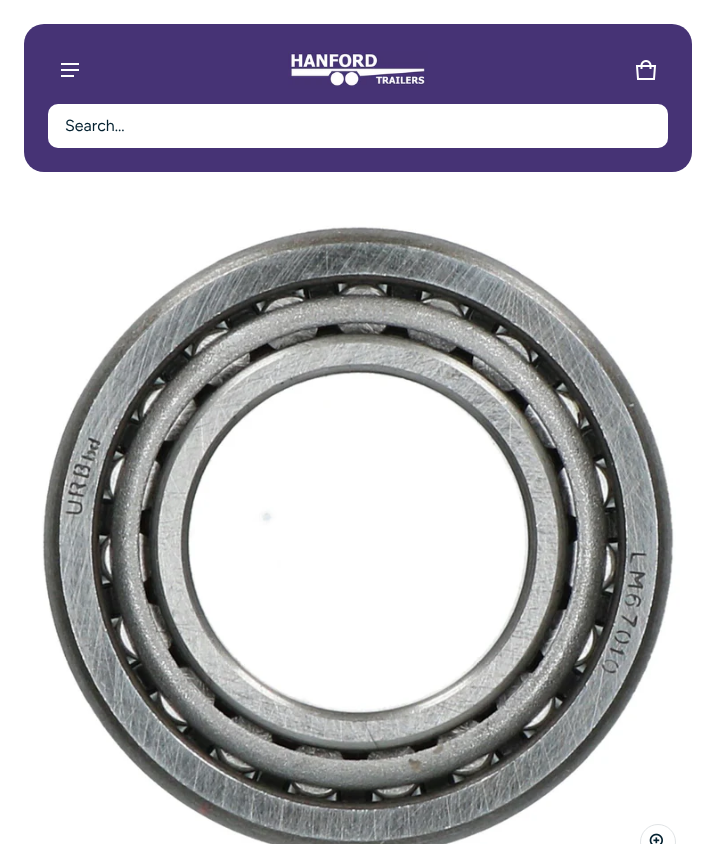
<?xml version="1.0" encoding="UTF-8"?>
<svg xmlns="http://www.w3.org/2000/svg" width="716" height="844">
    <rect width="100%" height="100%" fill="#FFFFFF"/>
    <rect x="24" y="24" width="668" height="148" rx="20" fill="#463375"/>
    <rect x="61" y="63" width="18" height="2" fill="#FFFFFF"/>
    <rect x="61" y="69" width="18" height="2" fill="#FFFFFF"/>
    <rect x="61" y="75" width="13" height="2" fill="#FFFFFF"/>
    <image x="288" y="51" width="140" height="38" href="img_01.png"/>
    <image x="635" y="60" width="22" height="20" href="img_02.png"/>
    <rect x="48" y="104" width="620" height="44" rx="10" fill="#FFFFFF"/>
    <rect x="48.5" y="104.5" width="619" height="43" rx="9.5" fill="none" stroke="#FFFFFF" stroke-opacity="0.12"/>
    <text x="65" y="131" font-family="Figtree" font-size="16" fill="#042130">Search...</text>
    <image x="24" y="208" width="668" height="636" href="img_03.png"/>
    <circle cx="658" cy="842" r="17.5" fill="none" stroke="#E1E4E6"/>
    <image x="649" y="833" width="14" height="11" href="img_04.png"/>
</svg>
